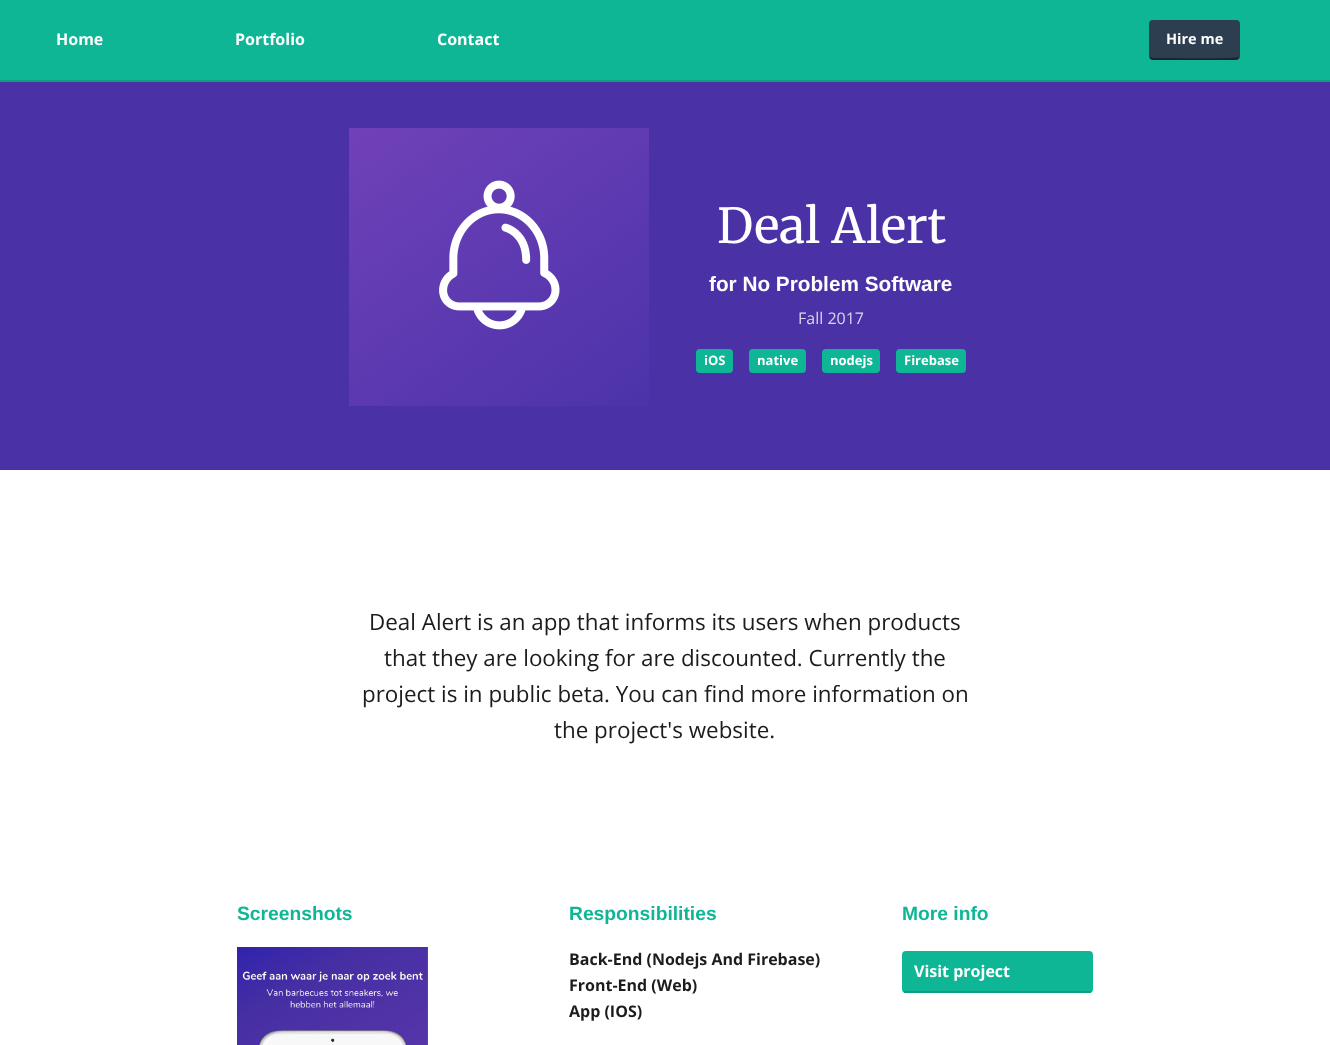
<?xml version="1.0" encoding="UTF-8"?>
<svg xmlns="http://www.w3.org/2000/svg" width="1330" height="1045">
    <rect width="100%" height="100%" fill="#FFFFFF"/>
    <rect x="0" y="0" width="1330" height="80" fill="#0FB696"/>
    <rect x="0" y="80" width="1330" height="2" fill="#0D9E83"/>
    <text x="56" y="45" font-family="Open Sans" font-size="16" font-weight="700" fill="#FEFEFE">Home</text>
    <text x="235" y="45" font-family="Open Sans" font-size="16" font-weight="700" fill="#FEFEFE">Portfolio</text>
    <text x="437" y="45" font-family="Open Sans" font-size="16" font-weight="700" fill="#FEFEFE">Contact</text>
    <rect x="1149" y="20" width="91" height="40" rx="4" fill="#2C3E50"/>
    <path d="M 1153 60 H 1236 L 1239 58 L 1238 57 C 1236 59 1175 58 1167 58 H 1153 L 1150 57 V 58 C 1151 59 1152 60 1153 60 Z" fill="#1A252F"/>
    <text x="1166" y="44" font-family="Open Sans" font-size="14.5" font-weight="700" fill="#FEFEFE">Hire me</text>
    <rect x="0" y="82" width="1330" height="388" fill="#4A32A6"/>
    <image x="349" y="128" width="300" height="278" href="img_01.png"/>
    <text x="717" y="243" font-family="Merriweather" font-size="48" fill="#FEFEFE">Deal Alert</text>
    <text x="709" y="291" font-family="Liberation Sans" font-size="20.75" font-weight="700" fill="#FEFEFE">for No Problem Software</text>
    <text x="798" y="324" font-family="Open Sans" font-size="16" fill="#DBD6ED">Fall 2017</text>
    <rect x="696" y="349" width="37" height="24" rx="4" fill="#0FB696"/>
    <text x="704" y="365" font-family="Open Sans" font-size="13" font-weight="700" fill="#FEFEFE">iOS</text>
    <rect x="749" y="349" width="57" height="24" rx="4" fill="#0FB696"/>
    <text x="757" y="365" font-family="Open Sans" font-size="13" font-weight="700" fill="#FEFEFE">native</text>
    <rect x="822" y="349" width="58" height="24" rx="4" fill="#0FB696"/>
    <text x="830" y="365" font-family="Open Sans" font-size="13" font-weight="700" fill="#FEFEFE">nodejs</text>
    <rect x="896" y="349" width="70" height="24" rx="4" fill="#0FB696"/>
    <text x="904" y="365" font-family="Open Sans" font-size="13" font-weight="700" fill="#FEFEFE">Firebase</text>
    <text x="369" y="630" font-family="Open Sans" font-size="22.4" fill="#1C1C1C">Deal Alert is an app that informs its users when products</text>
    <text x="384" y="666" font-family="Open Sans" font-size="22.4" fill="#1C1C1C">that they are looking for are discounted. Currently the</text>
    <text x="362" y="702" font-family="Open Sans" font-size="22.4" fill="#1C1C1C">project is in public beta. You can find more information on</text>
    <text x="554" y="738" font-family="Open Sans" font-size="22.4" fill="#1C1C1C">the project's website.</text>
    <text x="237" y="920" font-family="Liberation Sans" font-size="19.25" font-weight="700" fill="#0FB696">Screenshots</text>
    <image x="237" y="947" width="191" height="98" href="img_02.png"/>
    <text x="569" y="920" font-family="Liberation Sans" font-size="19.25" font-weight="700" fill="#0FB696">Responsibilities</text>
    <text font-family="Open Sans" font-size="16" font-weight="700" fill="#1C1C1C">
        <tspan x="569" y="965">Back-End (Nodejs And Firebase)</tspan>
        <tspan x="569" y="991">Front-End (Web)</tspan>
        <tspan x="569" y="1017">App (IOS)</tspan>
    </text>
    <text x="902" y="920" font-family="Liberation Sans" font-size="19.25" font-weight="700" fill="#0FB696">More info</text>
    <rect x="902" y="951" width="191" height="42" rx="4" fill="#0FB696"/>
    <rect x="904" y="991" width="187" height="2" fill="#0D9E83"/>
    <text x="914" y="977" font-family="Open Sans" font-size="16" font-weight="700" fill="#FEFEFE">Visit project</text>
</svg>
